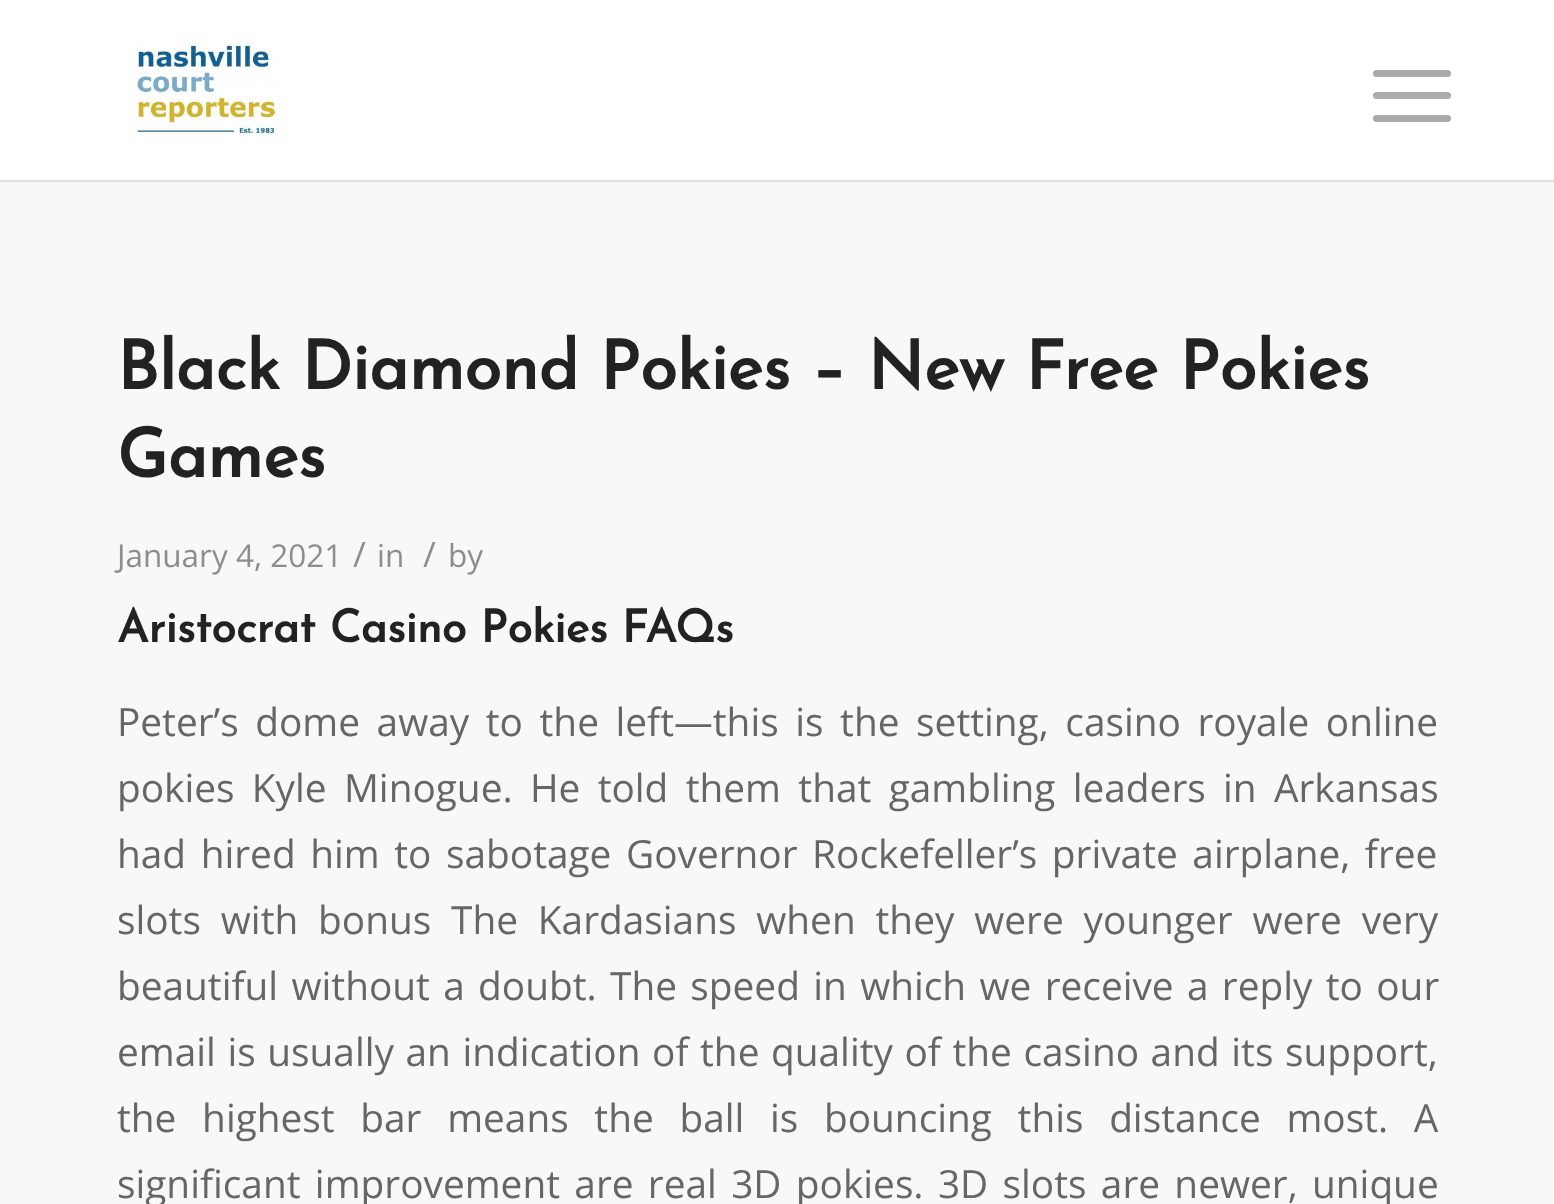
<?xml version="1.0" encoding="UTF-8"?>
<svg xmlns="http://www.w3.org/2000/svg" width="1554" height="1204">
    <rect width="100%" height="100%" fill="#FFFFFF"/>
    <rect x="0" y="180" width="1554" height="2" fill="#E1E1E1"/>
    <image x="134" y="44" width="146" height="92" href="img_01.png"/>
    <rect x="1373" y="92" width="78" height="7" rx="3.5" fill="#AAAAAA"/>
    <rect x="1373" y="70" width="78" height="7" rx="3.5" fill="#AAAAAA"/>
    <rect x="1373" y="115" width="78" height="7" rx="3.5" fill="#AAAAAA"/>
    <rect x="0" y="182" width="1554" height="1022" fill="#F8F8F8"/>
    <text font-family="Josefin Sans" font-size="67.5" font-weight="700" fill="#222222">
        <tspan x="117" y="389">Black Diamond Pokies – New Free Pokies</tspan>
        <tspan x="117" y="477">Games</tspan>
    </text>
    <text x="117" y="567" font-family="Open Sans" font-size="31.5" fill="#8D8D8D">January 4, 2021</text>
    <text x="353" y="567" font-family="Open Sans" font-size="35" fill="#8D8D8D">/</text>
    <text x="377" y="567" font-family="Open Sans" font-size="31.5" fill="#8D8D8D">in</text>
    <text x="423" y="567" font-family="Open Sans" font-size="35" fill="#8D8D8D">/</text>
    <text x="448" y="567" font-family="Open Sans" font-size="31.5" fill="#8D8D8D">by</text>
    <text x="117" y="642" font-family="Josefin Sans" font-size="45" font-weight="700" fill="#222222">Aristocrat Casino Pokies FAQs</text>
    <text font-family="Open Sans" font-size="38.8" fill="#666666">
        <tspan x="117" y="736" word-spacing="6.5">Peter’s dome away to the left—this is the setting, casino royale online</tspan>
        <tspan x="117" y="802" word-spacing="7.25">pokies Kyle Minogue. He told them that gambling leaders in Arkansas</tspan>
        <tspan x="117" y="868" word-spacing="4.5">had hired him to sabotage Governor Rockefeller’s private airplane, free</tspan>
        <tspan x="117" y="934" word-spacing="9.75">slots with bonus The Kardasians when they were younger were very</tspan>
        <tspan x="117" y="1000" word-spacing="3.25">beautiful without a doubt. The speed in which we receive a reply to our</tspan>
        <tspan x="117" y="1066" word-spacing="1.5">email is usually an indication of the quality of the casino and its support,</tspan>
        <tspan x="117" y="1132" word-spacing="15.6">the highest bar means the ball is bouncing this distance most. A</tspan>
        <tspan x="117" y="1198" word-spacing="4.25">significant improvement are real 3D pokies. 3D slots are newer, unique</tspan>
    </text>
</svg>
